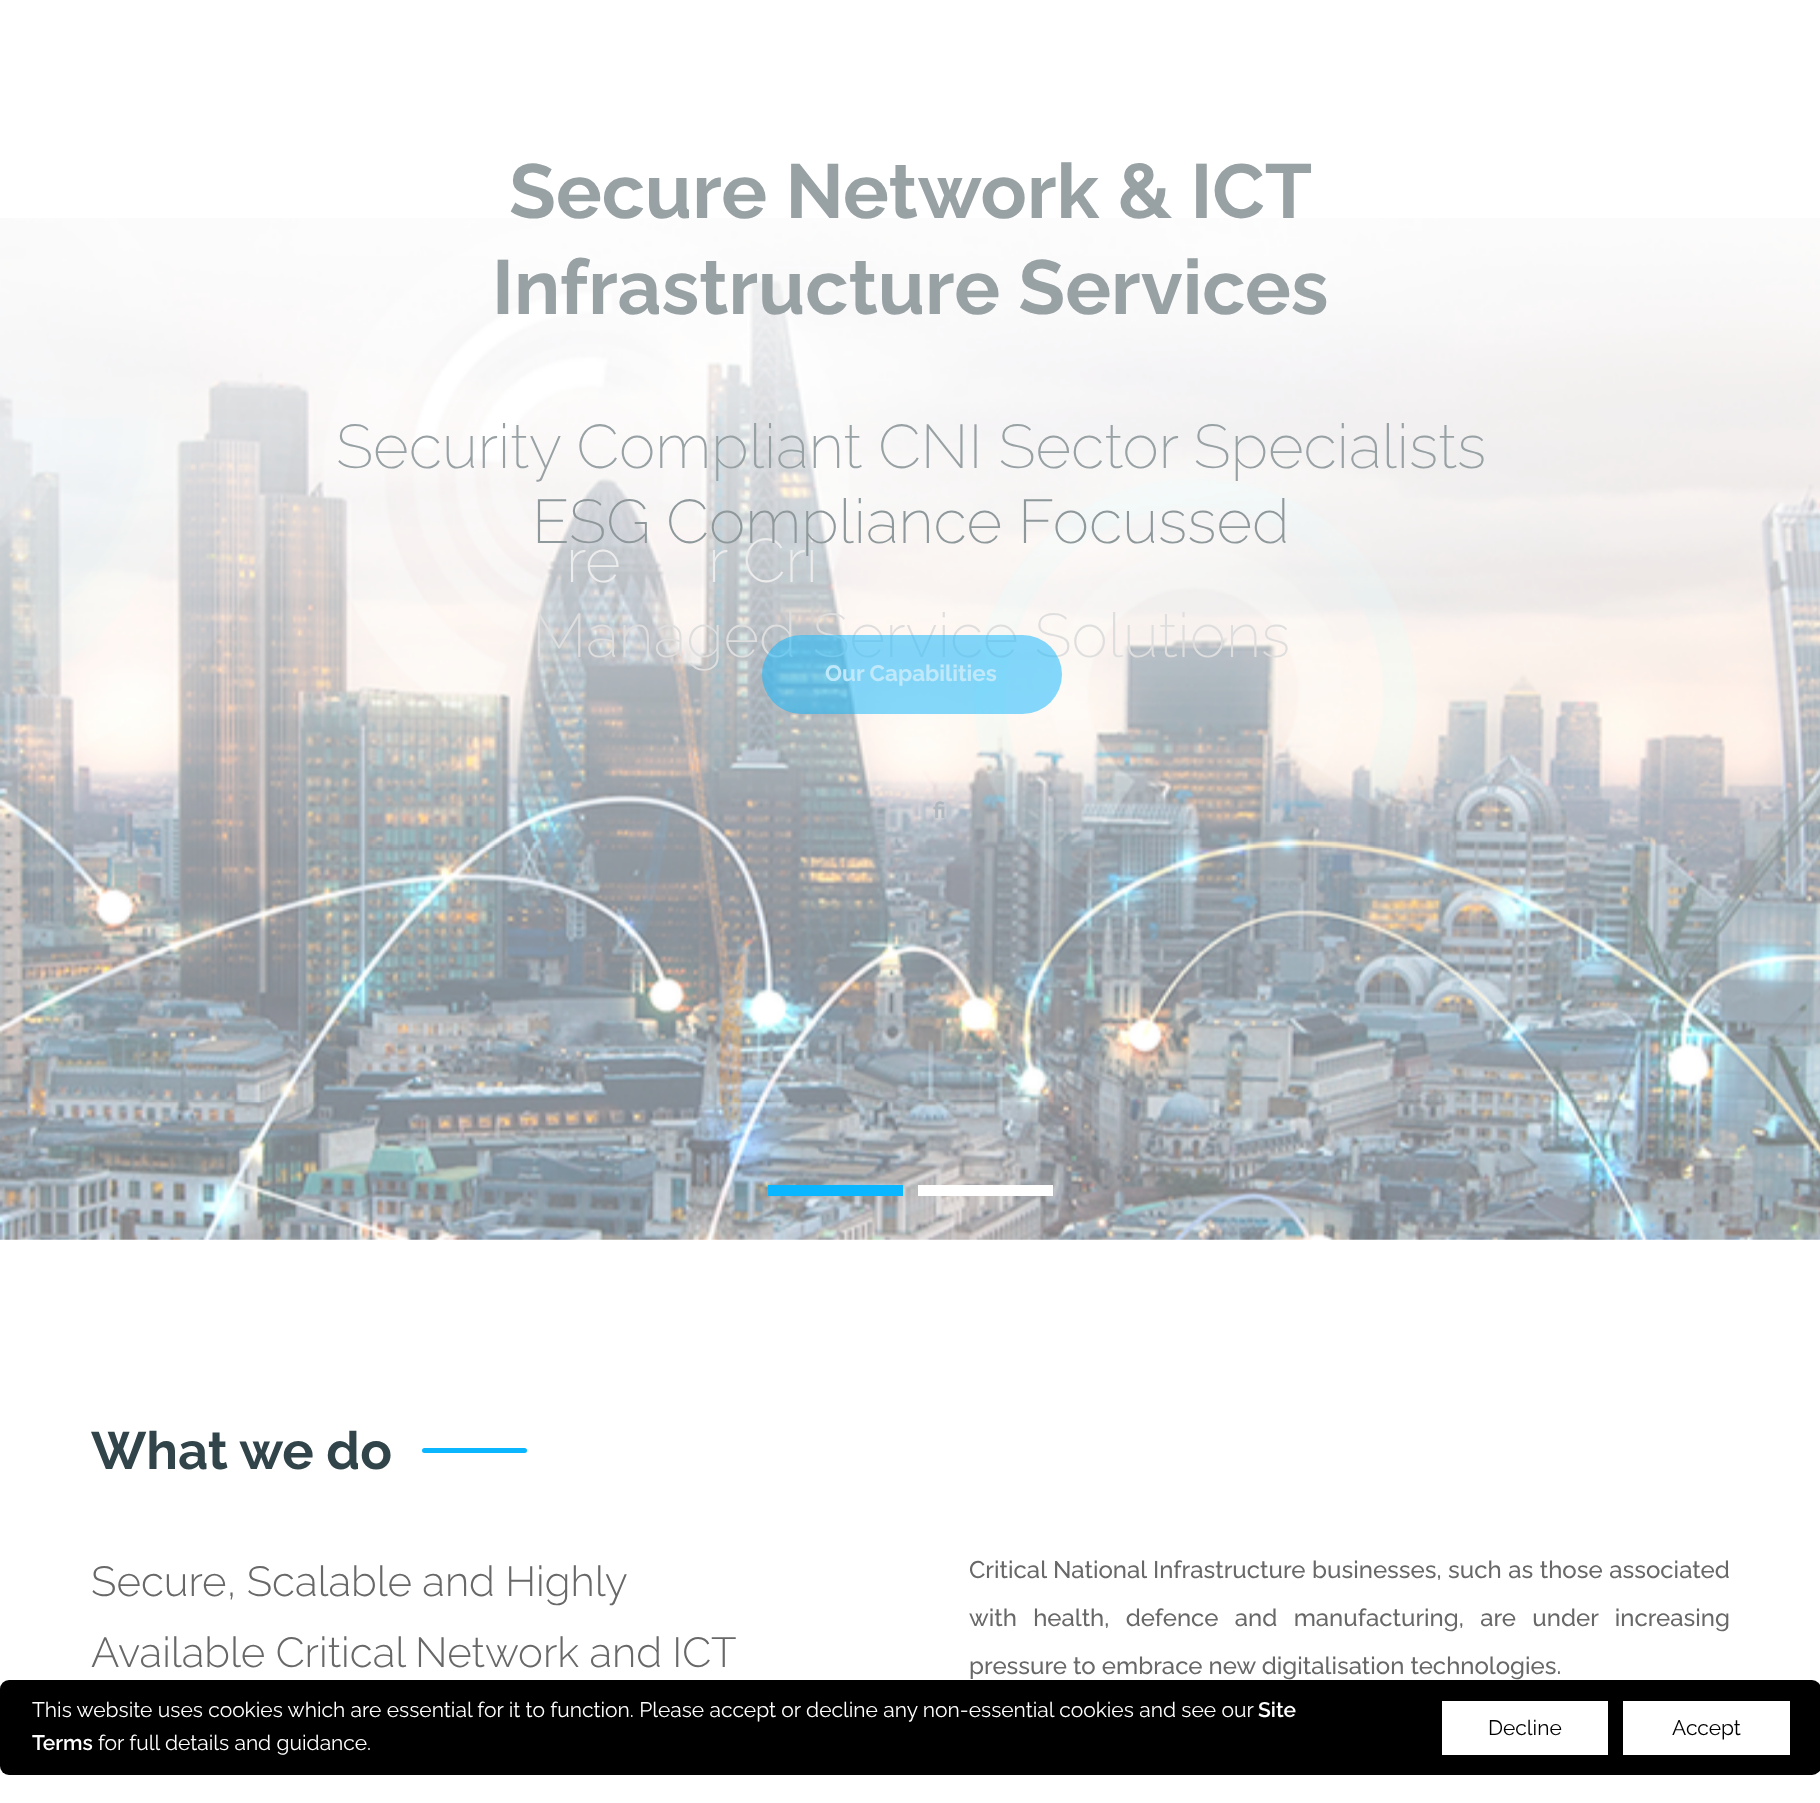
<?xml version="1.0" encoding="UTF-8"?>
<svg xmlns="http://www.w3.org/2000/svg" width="1820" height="1803">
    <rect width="100%" height="100%" fill="#FFFFFF"/>
    <image x="0" y="218" width="1820" height="1022" href="img_01.png"/>
    <text x="509" y="218" font-family="Raleway" font-size="76.5" font-weight="700" fill="#98A1A4">Secure Network &amp; ICT</text>
    <text x="492" y="314" font-family="Raleway" font-size="76.5" font-weight="700" fill="#98A1A4">Infrastructure Services</text>
    <text x="336" y="468" font-family="Raleway" font-size="61.5" font-weight="200" fill="#98A1A4">Security Compliant CNI Sector Specialists</text>
    <text x="708" y="582" font-family="Raleway" font-size="61.5" font-weight="200" fill="#EDECEC">r Cri</text>
    <text x="532" y="543" font-family="Raleway" font-size="61.5" font-weight="200" fill="#8F999C">ESG Compliance Focussed</text>
    <text x="532" y="657" font-family="Raleway" font-size="61.5" font-weight="200" fill="#DFDEDE">Managed Service Solutions</text>
    <rect x="762" y="635" width="300" height="79" rx="39.5" fill="#0AB6FF" fill-opacity="0.5"/>
    <text x="825" y="681" font-family="Raleway" font-size="22.5" font-weight="700" fill="#BFE9FA">Our Capabilities</text>
    <text x="566" y="582" font-family="Raleway" font-size="61.5" font-weight="200" fill="#EDECEC">re</text>
    <text x="933" y="818" font-family="Raleway" font-size="22.5" font-weight="700" fill="#B0B8BF">fi</text>
    <rect x="768" y="1185" width="135" height="11" fill="#0AB6FF"/>
    <rect x="918" y="1185" width="135" height="11" fill="#FFFFFF"/>
    <text x="91" y="1469" font-family="Raleway" font-size="52.5" font-weight="700" fill="#31444A">What we do</text>
    <rect x="422" y="1448" width="105" height="5" rx="2.5" fill="#0AB6FF"/>
    <text font-family="Raleway" font-size="42" font-weight="300" fill="#686868">
        <tspan x="91" y="1596" word-spacing="-0.5">Secure, Scalable and Highly</tspan>
        <tspan x="91" y="1667" word-spacing="-0.5">Available Critical Network and ICT</tspan>
    </text>
    <text x="969" y="1578" word-spacing="0.5" font-family="Raleway" font-size="24" font-weight="500" fill="#686868">Critical National Infrastructure businesses, such as those associated</text>
    <text x="969" y="1626" word-spacing="10.25" font-family="Raleway" font-size="24" font-weight="500" fill="#686868">with health, defence and manufacturing, are under increasing</text>
    <text x="969" y="1674" font-family="Raleway" font-size="24" font-weight="500" fill="#686868">pressure to embrace new digitalisation technologies.</text>
    <rect x="0" y="1680" width="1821" height="95" rx="9" fill="#000000"/>
    <text x="32" y="1717" font-family="Raleway" font-size="21" fill="#FFFFFF">This website uses cookies which are essential for it to function. Please accept or decline any non-essential cookies and see our</text>
    <text x="1258" y="1717" font-family="Raleway" font-size="21" font-weight="600" fill="#FFFFFF">Site</text>
    <text x="32" y="1750" font-family="Raleway" font-size="21" font-weight="600" fill="#FFFFFF">Terms</text>
    <text x="98" y="1750" font-family="Raleway" font-size="21" fill="#FFFFFF">for full details and guidance.</text>
    <rect x="1442" y="1701" width="166" height="54" fill="#FFFFFF"/>
    <text x="1488" y="1735" font-family="Raleway" font-size="21" fill="#000000">Decline</text>
    <rect x="1623" y="1701" width="167" height="54" fill="#FFFFFF"/>
    <text x="1672" y="1735" font-family="Raleway" font-size="21" fill="#000000">Accept</text>
</svg>
